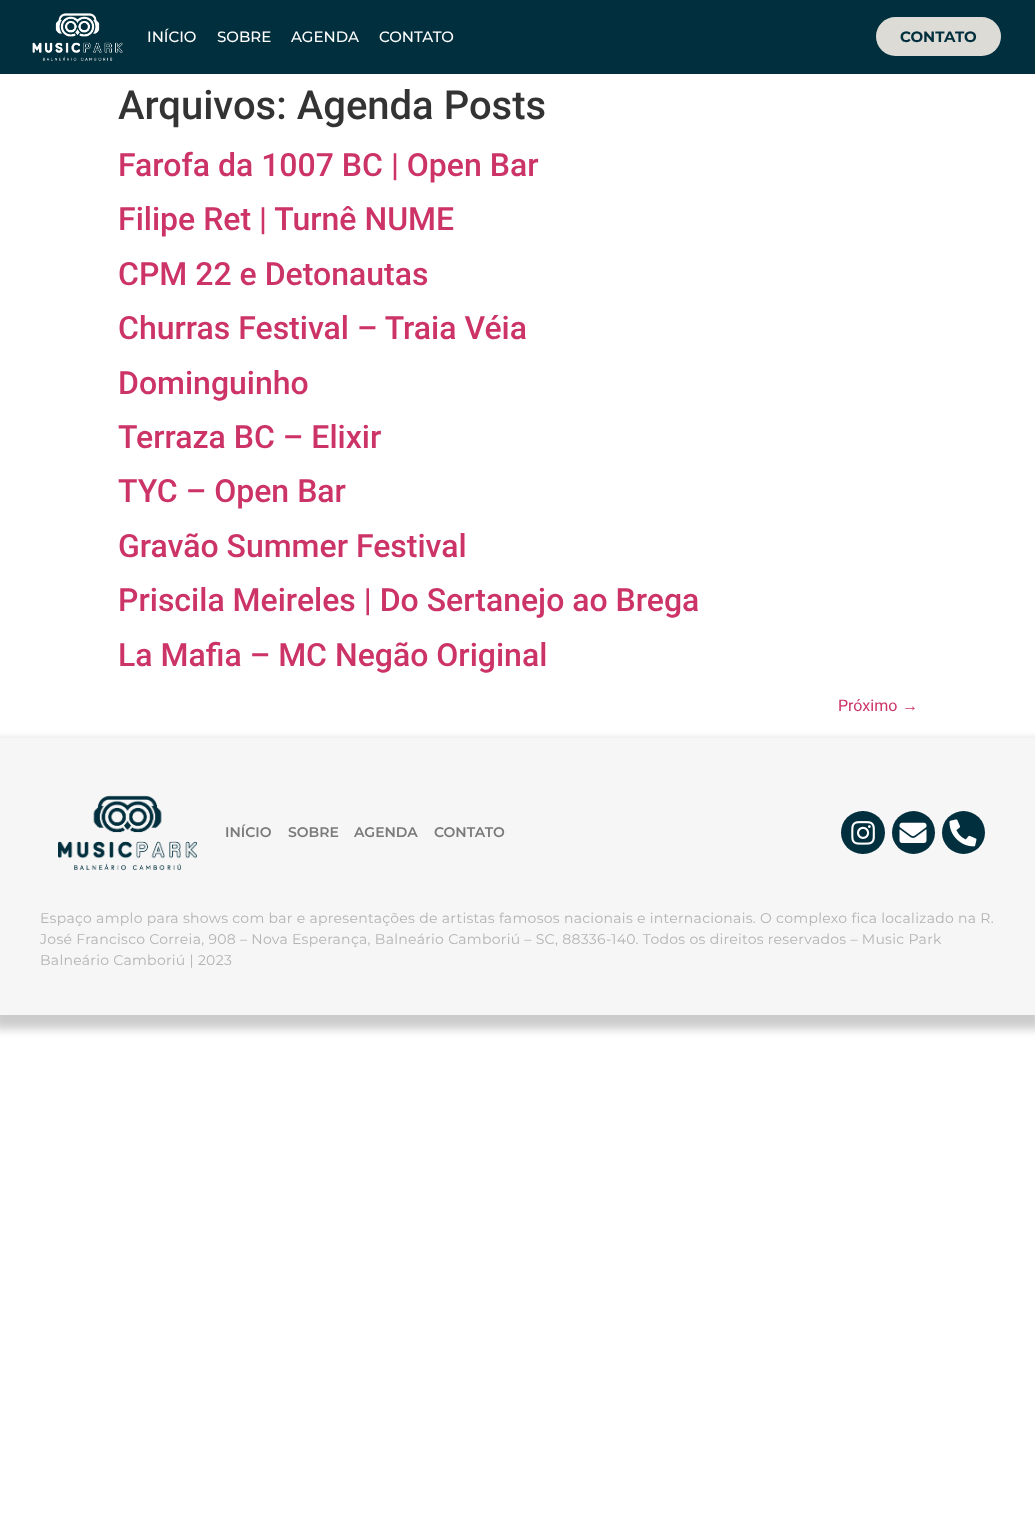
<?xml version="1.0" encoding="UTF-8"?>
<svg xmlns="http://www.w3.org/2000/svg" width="1035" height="1516">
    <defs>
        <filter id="blur1" x="-50%" y="-200%" width="200%" height="500%"><feGaussianBlur stdDeviation="5"/></filter>
    </defs>
    <rect width="100%" height="100%" fill="#FFFFFF"/>
    <rect x="0" y="0" width="1035" height="74" fill="#022F3D"/>
    <image x="32" y="13" width="91" height="48" href="img_01.png"/>
    <text x="147" y="42" font-family="Montserrat" font-size="15" font-weight="500" fill="#FFFFFF">INÍCIO</text>
    <text x="217" y="42" font-family="Montserrat" font-size="15" font-weight="500" fill="#FFFFFF">SOBRE</text>
    <text x="291" y="42" font-family="Montserrat" font-size="15" font-weight="500" fill="#FFFFFF">AGENDA</text>
    <text x="379" y="42" font-family="Montserrat" font-size="15" font-weight="500" fill="#FFFFFF">CONTATO</text>
    <rect x="876" y="17" width="125" height="39" rx="19.5" fill="#DDDBD6"/>
    <text x="900" y="42" font-family="Montserrat" font-size="15" font-weight="700" fill="#022F3D">CONTATO</text>
    <text x="118" y="119" font-family="Roboto" font-size="40" font-weight="500" fill="#333333">Arquivos: Agenda Posts</text>
    <text font-family="Roboto" font-size="32" font-weight="500" fill="#CC3366">
        <tspan x="118" y="176">Farofa da 1007 BC | Open Bar</tspan>
        <tspan x="118" y="230">Filipe Ret | Turnê NUME</tspan>
        <tspan x="118" y="285">CPM 22 e Detonautas</tspan>
        <tspan x="118" y="339">Churras Festival – Traia Véia</tspan>
        <tspan x="118" y="394">Dominguinho</tspan>
        <tspan x="118" y="448">Terraza BC – Elixir</tspan>
        <tspan x="118" y="502">TYC – Open Bar</tspan>
        <tspan x="118" y="557">Gravão Summer Festival</tspan>
        <tspan x="118" y="611">Priscila Meireles | Do Sertanejo ao Brega</tspan>
        <tspan x="118" y="666">La Mafia – MC Negão Original</tspan>
    </text>
    <text x="838" y="711" font-family="Roboto" font-size="16" fill="#CC3366">Próximo</text>
    <text x="902" y="711" font-family="Liberation Sans" font-size="16" fill="#CC3366">→</text>
    <rect x="-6" y="740" width="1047" height="289" fill="#000000" fill-opacity="0.2" filter="url(#blur1)"/>
    <rect x="0" y="738" width="1035" height="277" fill="#F6F6F6"/>
    <image x="58" y="795" width="139" height="76" href="img_02.png"/>
    <text x="225" y="837" font-family="Montserrat" font-size="14" font-weight="600" fill="#7A7A7A">INÍCIO</text>
    <text x="288" y="837" font-family="Montserrat" font-size="14" font-weight="600" fill="#7A7A7A">SOBRE</text>
    <text x="354" y="837" font-family="Montserrat" font-size="14" font-weight="600" fill="#7A7A7A">AGENDA</text>
    <text x="434" y="837" font-family="Montserrat" font-size="14" font-weight="600" fill="#7A7A7A">CONTATO</text>
    <rect x="841" y="811" width="44" height="43" rx="21.5" fill="#022F3D"/>
    <image x="851" y="821" width="24" height="24" href="img_03.png"/>
    <circle cx="913.5" cy="832.5" r="21.5" fill="#022F3D"/>
    <image x="899" y="822" width="28" height="21" href="img_04.png"/>
    <circle cx="963.5" cy="832.5" r="21.5" fill="#022F3D"/>
    <image x="949" y="819" width="28" height="28" href="img_05.png"/>
    <text font-family="Montserrat" font-size="14" letter-spacing="0.3" fill="#B3B3B3">
        <tspan x="40" y="923">Espaço amplo para shows com bar e apresentações de artistas famosos nacionais e internacionais. O complexo fica localizado na R.</tspan>
        <tspan x="40" y="944">José Francisco Correia, 908 – Nova Esperança, Balneário Camboriú – SC, 88336-140. Todos os direitos reservados – Music Park</tspan>
        <tspan x="40" y="965">Balneário Camboriú | 2023</tspan>
    </text>
</svg>
